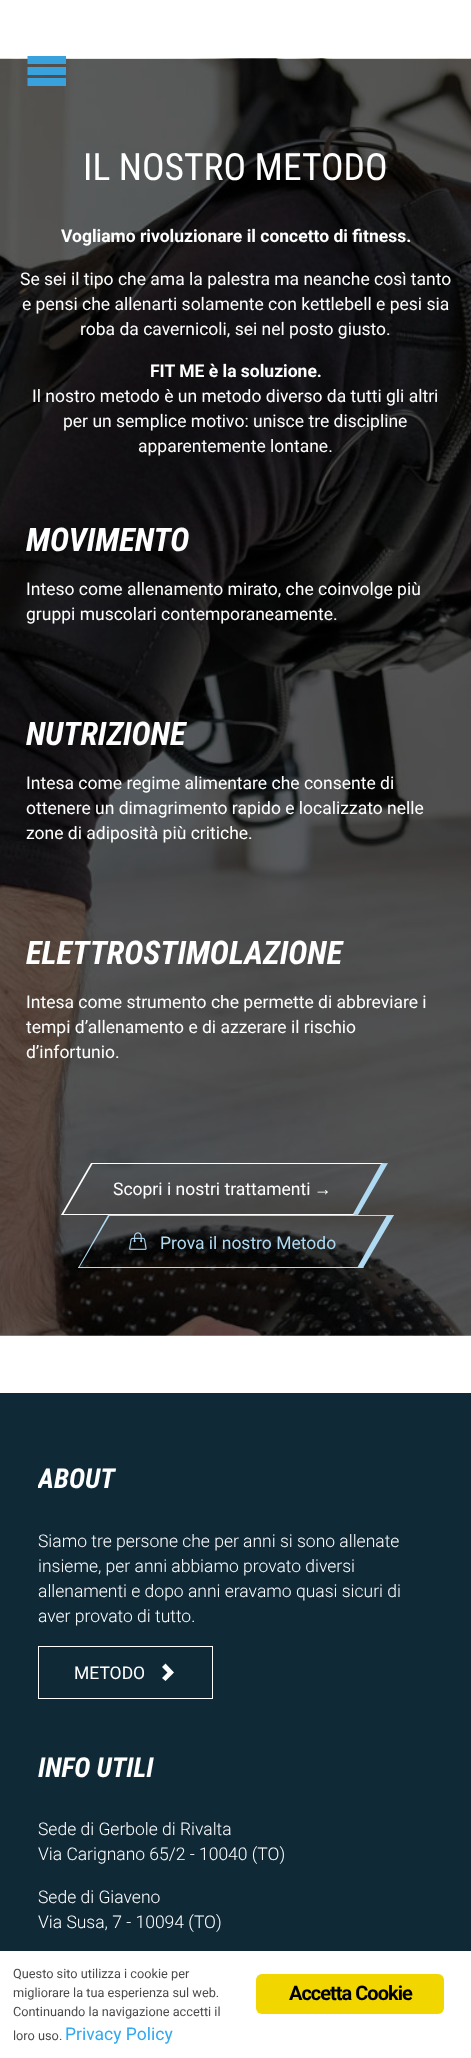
<?xml version="1.0" encoding="UTF-8"?>
<svg xmlns="http://www.w3.org/2000/svg" width="471" height="2058">
    <defs>
        <clipPath id="clip1"><rect x="38" y="1430" width="396" height="81"/></clipPath>
    </defs>
    <rect width="100%" height="100%" fill="#FFFFFF"/>
    <image x="0" y="58" width="471" height="1278" href="img_01.png"/>
    <path d="M 27.5 56 H 66 V 64 H 27.5 Z M 27.5 67 H 66 V 75 H 27.5 Z M 27.5 78 H 66 V 86 H 27.5 Z" fill="#39A2DD"/>
    <text x="83" y="180" font-family="Roboto Condensed" font-size="37.5" fill="#FFFFFF">IL NOSTRO METODO</text>
    <text x="61" y="242" font-family="Roboto" font-size="17.5" font-weight="700" fill="#FFFFFF">Vogliamo rivoluzionare il concetto di fitness.</text>
    <text x="20" y="285" font-family="Roboto" font-size="17.5" fill="#FFFFFF">Se sei il tipo che ama la palestra ma neanche così tanto</text>
    <text x="22" y="310" font-family="Roboto" font-size="17.5" fill="#FFFFFF">e pensi che allenarti solamente con kettlebell e pesi sia</text>
    <text x="80" y="335" font-family="Roboto" font-size="17.5" fill="#FFFFFF">roba da cavernicoli, sei nel posto giusto.</text>
    <text x="150" y="377" font-family="Roboto" font-size="17.5" font-weight="700" fill="#FFFFFF">FIT ME è la soluzione.</text>
    <text x="32" y="402" font-family="Roboto" font-size="17.5" fill="#FFFFFF">Il nostro metodo è un metodo diverso da tutti gli altri</text>
    <text x="63" y="427" font-family="Roboto" font-size="17.5" fill="#FFFFFF">per un semplice motivo: unisce tre discipline</text>
    <text x="138" y="452" font-family="Roboto" font-size="17.5" fill="#FFFFFF">apparentemente lontane.</text>
    <text x="26" y="551" font-family="Roboto Condensed" font-size="32.5" font-weight="700" font-style="italic" fill="#FFFFFF">MOVIMENTO</text>
    <text font-family="Roboto" font-size="17.5" fill="#FFFFFF">
        <tspan x="26" y="595">Inteso come allenamento mirato, che coinvolge più</tspan>
        <tspan x="26" y="620">gruppi muscolari contemporaneamente.</tspan>
    </text>
    <text x="26" y="745" font-family="Roboto Condensed" font-size="32.5" font-weight="700" font-style="italic" fill="#FFFFFF">NUTRIZIONE</text>
    <text font-family="Roboto" font-size="17.5" fill="#FFFFFF">
        <tspan x="26" y="789">Intesa come regime alimentare che consente di</tspan>
        <tspan x="26" y="814">ottenere un dimagrimento rapido e localizzato nelle</tspan>
        <tspan x="26" y="839">zone di adiposità più critiche.</tspan>
    </text>
    <text x="26" y="964" font-family="Roboto Condensed" font-size="32.5" font-weight="700" font-style="italic" fill="#FFFFFF">ELETTROSTIMOLAZIONE</text>
    <text font-family="Roboto" font-size="17.5" fill="#FFFFFF">
        <tspan x="26" y="1008">Intesa come strumento che permette di abbreviare i</tspan>
        <tspan x="26" y="1033">tempi d’allenamento e di azzerare il rischio</tspan>
        <tspan x="26" y="1058">d’infortunio.</tspan>
    </text>
    <path d="M 91 1163 H 388 L 381 1164 H 92 Z" fill="#FFFFFF"/>
    <path d="M 388 1163 L 358 1215 L 353 1214 L 381 1164 Z" fill="#B0DAF2"/>
    <path d="M 358 1215 H 61 L 63 1214 H 353 Z" fill="#FFFFFF"/>
    <path d="M 91 1163 H 93 L 63 1215 H 61 Z" fill="#FFFFFF"/>
    <text x="113" y="1195" font-family="Roboto" font-size="17.5" fill="#FFFFFF">Scopri i nostri trattamenti</text>
    <text x="314" y="1195" font-family="Liberation Serif" font-size="17.5" fill="#FFFFFF">→</text>
    <path d="M 108 1215 H 394 L 393 1216 H 108 Z" fill="#B0DAF2"/>
    <path d="M 387 1215 H 394 L 363 1268 H 357 Z" fill="#B0DAF2"/>
    <path d="M 78 1267 H 364 L 363 1268 H 78 Z" fill="#B0DAF2"/>
    <path d="M 108 1215 H 110 L 79 1268 H 78 Z" fill="#B0DAF2"/>
    <image x="129" y="1232" width="18" height="18" href="img_02.png"/>
    <text x="160" y="1249" font-family="Roboto" font-size="17.5" fill="#B0DAF2">Prova il nostro Metodo</text>
    <rect x="0" y="1393" width="471" height="558" fill="#0F2937"/>
    <g clip-path="url(#clip1)">
        <text x="38" y="1488" font-family="Roboto Condensed" font-size="27.5" font-weight="700" font-style="italic" fill="#FFFFFF">ABOUT</text>
    </g>
    <text font-family="Roboto" font-size="17.5" font-weight="300" fill="#FFFFFF">
        <tspan x="38" y="1547">Siamo tre persone che per anni si sono allenate</tspan>
        <tspan x="38" y="1572">insieme, per anni abbiamo provato diversi</tspan>
        <tspan x="38" y="1597">allenamenti e dopo anni eravamo quasi sicuri di</tspan>
        <tspan x="38" y="1622">aver provato di tutto.</tspan>
    </text>
    <rect x="38.5" y="1646.5" width="174" height="52" fill="none" stroke="#FFFFFF"/>
    <text x="74" y="1679" font-family="Roboto" font-size="17.5" fill="#FFFFFF">METODO</text>
    <path d="M 165.5 1663.5 L 162 1667 L 167.5 1672.5 L 162 1678 L 165.5 1681 L 174 1672.5 Z" fill="#FFFFFF"/>
    <text x="38" y="1777" font-family="Roboto Condensed" font-size="27.5" font-weight="700" font-style="italic" fill="#FFFFFF">INFO UTILI</text>
    <text font-family="Roboto" font-size="17.5" font-weight="300" fill="#FFFFFF">
        <tspan x="38" y="1835">Sede di Gerbole di Rivalta</tspan>
        <tspan x="38" y="1860">Via Carignano 65/2 - 10040 (TO)</tspan>
    </text>
    <text font-family="Roboto" font-size="17.5" font-weight="300" fill="#FFFFFF">
        <tspan x="38" y="1903">Sede di Giaveno</tspan>
        <tspan x="38" y="1928">Via Susa, 7 - 10094 (TO)</tspan>
    </text>
    <text font-family="Roboto" font-size="12.75" fill="#4A4A4A">
        <tspan x="13" y="1978">Questo sito utilizza i cookie per</tspan>
        <tspan x="13" y="1997">migliorare la tua esperienza sul web.</tspan>
        <tspan x="13" y="2016">Continuando la navigazione accetti il</tspan>
        <tspan x="13" y="2040">loro uso.</tspan>
    </text>
    <text x="65" y="2040" font-family="Roboto" font-size="17.5" fill="#31A8F0">Privacy Policy</text>
    <rect x="256" y="1974" width="188" height="40" rx="6" fill="#F1D600"/>
    <text x="289" y="2000" font-family="Roboto" font-size="20" font-weight="700" letter-spacing="-1" fill="#000000">Accetta Cookie</text>
</svg>
